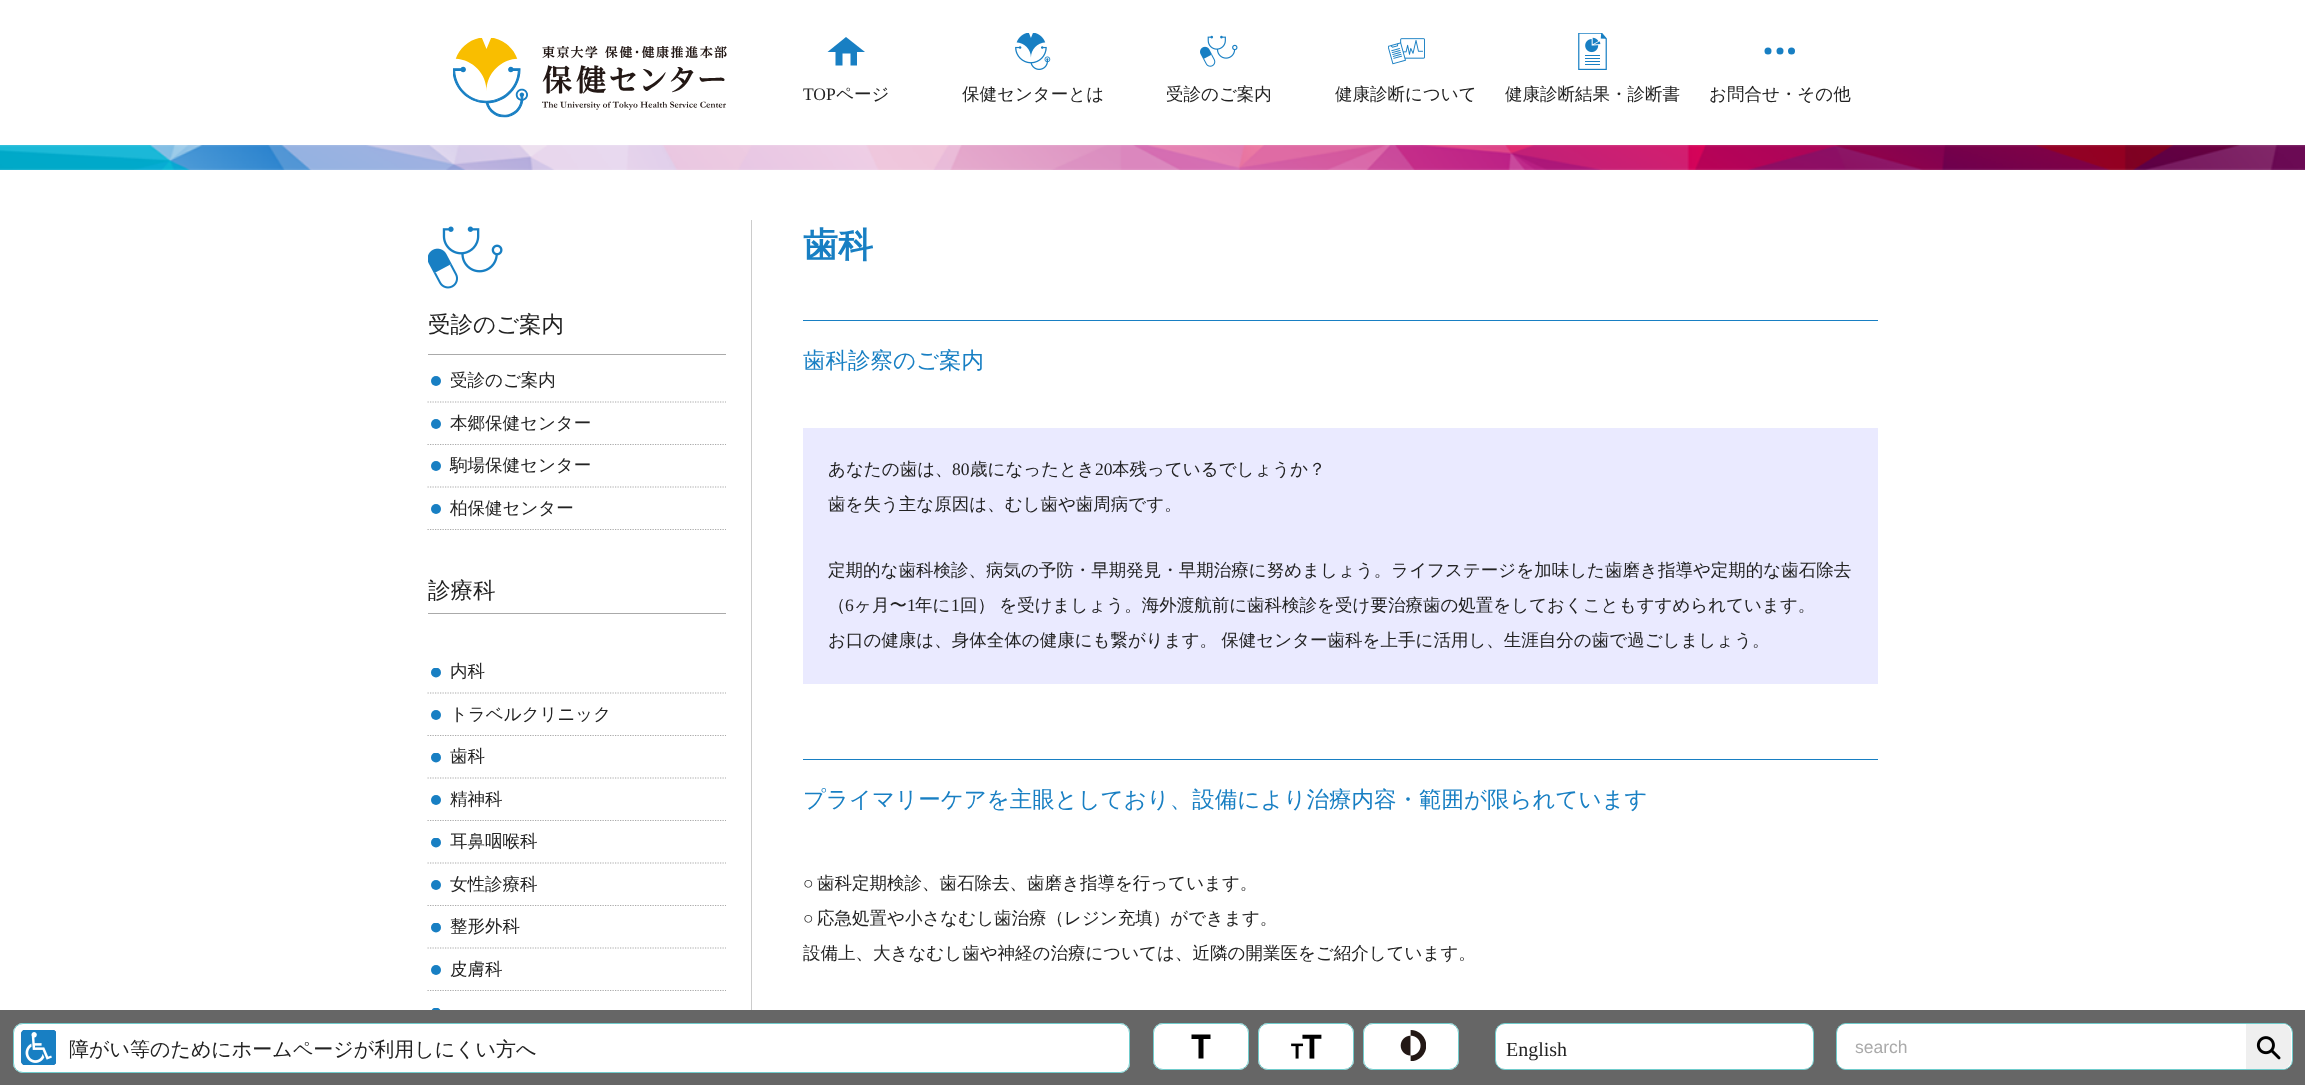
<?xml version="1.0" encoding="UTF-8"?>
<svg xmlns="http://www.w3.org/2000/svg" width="2305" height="1085">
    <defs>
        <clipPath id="clip1"><rect x="431" y="1008" width="10" height="10"/></clipPath>
        <clipPath id="clip2"><rect x="431" y="668" width="10" height="10"/></clipPath>
        <clipPath id="clip3"><rect x="431" y="753" width="10" height="10"/></clipPath>
        <clipPath id="clip4"><rect x="431" y="838" width="10" height="10"/></clipPath>
        <clipPath id="clip5"><rect x="431" y="923" width="10" height="10"/></clipPath>
    </defs>
    <rect width="100%" height="100%" fill="#FFFFFF"/>
    <image x="453" y="38" width="274" height="80" href="img_01.png"/>
    <path d="M 865 52 H 827.5 L 846 37 Z" fill="#187FC3"/>
    <path d="M 857 49 H 835.5 V 65.5 H 842.5 V 53.5 H 850.5 V 65.5 H 857 Z" fill="#187FC3"/>
    <text x="803" y="100" font-family="Liberation Serif" font-size="17.5" fill="#222222">TOP</text>
    <text x="836" y="100" font-family="WenQuanYi Zen Hei" font-size="17.5" font-weight="500" fill="#222222">ページ</text>
    <image x="1015" y="33" width="36" height="37" href="img_02.png"/>
    <text x="962" y="100" font-family="WenQuanYi Zen Hei" font-size="17.5" font-weight="500" fill="#222222">保健センターとは</text>
    <image x="1200" y="35" width="38" height="32" href="img_03.png"/>
    <text x="1166" y="100" font-family="WenQuanYi Zen Hei" font-size="17.5" font-weight="500" fill="#222222">受診のご案内</text>
    <image x="1388" y="38" width="37" height="27" href="img_04.png"/>
    <text x="1335" y="100" font-family="WenQuanYi Zen Hei" font-size="17.5" font-weight="500" fill="#222222">健康診断について</text>
    <image x="1578" y="33" width="29" height="37" href="img_05.png"/>
    <text x="1505" y="100" font-family="WenQuanYi Zen Hei" font-size="17.5" font-weight="500" fill="#222222">健康診断結果・診断書</text>
    <circle cx="1768" cy="51" r="3.5" fill="#187FC3"/>
    <circle cx="1780" cy="51" r="3.5" fill="#187FC3"/>
    <circle cx="1791.5" cy="51" r="3.5" fill="#187FC3"/>
    <text x="1709" y="100" font-family="WenQuanYi Zen Hei" font-size="17.5" font-weight="500" fill="#222222">お問合せ・その他</text>
    <g clip-path="url(#clip1)">
        <circle cx="436" cy="1012.5" r="5" fill="#187FC3"/>
    </g>
    <rect x="0" y="1010" width="2305" height="75" fill="#666666"/>
    <rect x="13" y="1023" width="1117" height="50" rx="10" fill="#FFFFFF"/>
    <image x="21" y="1030" width="35" height="35" href="img_06.png"/>
    <rect x="13.5" y="1023.5" width="1116" height="49" rx="9.5" fill="none" stroke="#6FCCCC"/>
    <text x="69" y="1056" font-family="WenQuanYi Zen Hei" font-size="20" font-weight="500" fill="#222222">障がい等のためにホームページが利用しにくい方へ</text>
    <rect x="1153" y="1023" width="96" height="47" rx="10" fill="#FFFFFF"/>
    <path d="M 1198.5 1058.5 V 1039 H 1191.5 V 1034.5 H 1210.5 V 1039 H 1203.5 V 1058.5 Z" fill="#000000"/>
    <rect x="1153.5" y="1023.5" width="95" height="46" rx="9.5" fill="none" stroke="#6FCCCC"/>
    <rect x="1258" y="1023" width="96" height="47" rx="10" fill="#FFFFFF"/>
    <image x="1291" y="1034" width="31" height="25" href="img_07.png"/>
    <rect x="1258.5" y="1023.5" width="95" height="46" rx="9.5" fill="none" stroke="#6FCCCC"/>
    <rect x="1363" y="1023" width="96" height="47" rx="10" fill="#FFFFFF"/>
    <image x="1400" y="1030" width="26" height="31" href="img_08.png"/>
    <rect x="1363.5" y="1023.5" width="95" height="46" rx="9.5" fill="none" stroke="#6FCCCC"/>
    <rect x="1495.5" y="1023.5" width="318" height="46" rx="9.5" fill="#FFFFFF" stroke="#6FCCCC"/>
    <text x="1506" y="1056" font-family="Liberation Serif" font-size="20" fill="#222222">English</text>
    <rect x="1836.5" y="1023.5" width="456" height="46" rx="9.5" fill="#FFFFFF" stroke="#6FCCCC"/>
    <rect x="1838" y="1024" width="453" height="45" rx="9" fill="#FFFFFF"/>
    <text x="1855" y="1053" font-family="Liberation Sans" font-size="17.5" fill="#AAAAAA">search</text>
    <path d="M 2246 1024 H 2282 C 2287 1024 2291 1028 2291 1033 V 1060 C 2291 1065 2287 1069 2282 1069 H 2246 Z" fill="#EFEFEF"/>
    <image x="2256" y="1036" width="25" height="24" href="img_09.png"/>
    <image x="0" y="145" width="2305" height="25" href="img_10.png"/>
    <rect x="751" y="220" width="1" height="790" fill="#CCCCCC"/>
    <image x="428" y="226" width="75" height="63" href="img_11.png"/>
    <rect x="428" y="354" width="298" height="1" fill="#AAAAAA"/>
    <text x="428" y="332" font-family="WenQuanYi Zen Hei" font-size="22.5" font-weight="500" fill="#222222">受診のご案内</text>
    <circle cx="436" cy="381" r="5" fill="#187FC3"/>
    <path d="M 427.5 402 H 726" fill="none" stroke="#AAAAAA" stroke-width="1.2" stroke-dasharray="1.25 1.25"/>
    <text x="450" y="386" font-family="WenQuanYi Zen Hei" font-size="17.5" font-weight="500" fill="#222222">受診のご案内</text>
    <circle cx="436" cy="424" r="5" fill="#187FC3"/>
    <path d="M 427.5 444.5 H 726" fill="none" stroke="#AAAAAA" stroke-width="1.2" stroke-dasharray="1.25 1.25"/>
    <text x="450" y="429" font-family="WenQuanYi Zen Hei" font-size="17.5" font-weight="500" fill="#222222">本郷保健センター</text>
    <circle cx="436" cy="466" r="5" fill="#187FC3"/>
    <path d="M 427.5 487 H 726" fill="none" stroke="#AAAAAA" stroke-width="1.2" stroke-dasharray="1.25 1.25"/>
    <text x="450" y="471" font-family="WenQuanYi Zen Hei" font-size="17.5" font-weight="500" fill="#222222">駒場保健センター</text>
    <circle cx="436" cy="509" r="5" fill="#187FC3"/>
    <path d="M 427.5 529.5 H 726" fill="none" stroke="#AAAAAA" stroke-width="1.2" stroke-dasharray="1.25 1.25"/>
    <text x="450" y="514" font-family="WenQuanYi Zen Hei" font-size="17.5" font-weight="500" fill="#222222">柏保健センター</text>
    <rect x="428" y="613" width="298" height="1" fill="#AAAAAA"/>
    <text x="428" y="598" font-family="WenQuanYi Zen Hei" font-size="22.5" font-weight="500" fill="#222222">診療科</text>
    <g clip-path="url(#clip2)">
        <circle cx="436" cy="672.5" r="5" fill="#187FC3"/>
    </g>
    <path d="M 427.5 693 H 726" fill="none" stroke="#AAAAAA" stroke-width="1.2" stroke-dasharray="1.25 1.25"/>
    <text x="450" y="677" font-family="WenQuanYi Zen Hei" font-size="17.5" font-weight="500" fill="#222222">内科</text>
    <circle cx="436" cy="715" r="5" fill="#187FC3"/>
    <path d="M 427.5 735.5 H 726" fill="none" stroke="#AAAAAA" stroke-width="1.2" stroke-dasharray="1.25 1.25"/>
    <text x="450" y="720" font-family="WenQuanYi Zen Hei" font-size="17.5" font-weight="500" fill="#222222">トラベルクリニック</text>
    <g clip-path="url(#clip3)">
        <circle cx="436" cy="757.5" r="5" fill="#187FC3"/>
    </g>
    <path d="M 427.5 778 H 726" fill="none" stroke="#AAAAAA" stroke-width="1.2" stroke-dasharray="1.25 1.25"/>
    <text x="450" y="762" font-family="WenQuanYi Zen Hei" font-size="17.5" font-weight="500" fill="#222222">歯科</text>
    <circle cx="436" cy="800" r="5" fill="#187FC3"/>
    <path d="M 427.5 820.5 H 726" fill="none" stroke="#AAAAAA" stroke-width="1.2" stroke-dasharray="1.25 1.25"/>
    <text x="450" y="805" font-family="WenQuanYi Zen Hei" font-size="17.5" font-weight="500" fill="#222222">精神科</text>
    <g clip-path="url(#clip4)">
        <circle cx="436" cy="842.5" r="5" fill="#187FC3"/>
    </g>
    <path d="M 427.5 863 H 726" fill="none" stroke="#AAAAAA" stroke-width="1.2" stroke-dasharray="1.25 1.25"/>
    <text x="450" y="847" font-family="WenQuanYi Zen Hei" font-size="17.5" font-weight="500" fill="#222222">耳鼻咽喉科</text>
    <circle cx="436" cy="885" r="5" fill="#187FC3"/>
    <path d="M 427.5 905.5 H 726" fill="none" stroke="#AAAAAA" stroke-width="1.2" stroke-dasharray="1.25 1.25"/>
    <text x="450" y="890" font-family="WenQuanYi Zen Hei" font-size="17.5" font-weight="500" fill="#222222">女性診療科</text>
    <g clip-path="url(#clip5)">
        <circle cx="436" cy="927.5" r="5" fill="#187FC3"/>
    </g>
    <path d="M 427.5 948 H 726" fill="none" stroke="#AAAAAA" stroke-width="1.2" stroke-dasharray="1.25 1.25"/>
    <text x="450" y="932" font-family="WenQuanYi Zen Hei" font-size="17.5" font-weight="500" fill="#222222">整形外科</text>
    <circle cx="436" cy="970" r="5" fill="#187FC3"/>
    <path d="M 427.5 990.5 H 726" fill="none" stroke="#AAAAAA" stroke-width="1.2" stroke-dasharray="1.25 1.25"/>
    <text x="450" y="975" font-family="WenQuanYi Zen Hei" font-size="17.5" font-weight="500" fill="#222222">皮膚科</text>
    <text x="803" y="257" font-family="WenQuanYi Zen Hei" font-size="35" font-weight="700" fill="#187FC3">歯科</text>
    <rect x="803" y="320" width="1075" height="1" fill="#187FC3"/>
    <text x="803" y="368" font-family="WenQuanYi Zen Hei" font-size="22.5" font-weight="500" fill="#187FC3">歯科診察のご案内</text>
    <rect x="803" y="428" width="1075" height="256" fill="#EAEAFF"/>
    <text x="828" y="475" font-family="WenQuanYi Zen Hei" font-size="17.5" font-weight="500" fill="#222222">あなたの歯は、</text>
    <text x="952" y="475" font-family="Liberation Serif" font-size="17.5" fill="#222222">80</text>
    <text x="970" y="475" font-family="WenQuanYi Zen Hei" font-size="17.5" font-weight="500" fill="#222222">歳になったとき</text>
    <text x="1095" y="475" font-family="Liberation Serif" font-size="17.5" fill="#222222">20</text>
    <text x="1112" y="475" font-family="WenQuanYi Zen Hei" font-size="17.5" font-weight="500" fill="#222222">本残っているでしょうか？</text>
    <text x="828" y="510" font-family="WenQuanYi Zen Hei" font-size="17.5" font-weight="500" fill="#222222">歯を失う主な原因は、むし歯や歯周病です。</text>
    <text x="828" y="576" font-family="WenQuanYi Zen Hei" font-size="17.5" font-weight="500" fill="#222222">定期的な歯科検診、病気の予防・早期発見・早期治療に努めましょう。ライフステージを加味した歯磨き指導や定期的な歯石除去</text>
    <text x="828" y="611" font-family="WenQuanYi Zen Hei" font-size="17.5" font-weight="500" fill="#222222">（</text>
    <text x="845" y="611" font-family="Liberation Serif" font-size="17.5" fill="#222222">6</text>
    <text x="854" y="611" font-family="WenQuanYi Zen Hei" font-size="17.5" font-weight="500" fill="#222222">ヶ月〜</text>
    <text x="907" y="611" font-family="Liberation Serif" font-size="17.5" fill="#222222">1</text>
    <text x="915" y="611" font-family="WenQuanYi Zen Hei" font-size="17.5" font-weight="500" fill="#222222">年に</text>
    <text x="951" y="611" font-family="Liberation Serif" font-size="17.5" fill="#222222">1</text>
    <text x="960" y="611" word-spacing="-1" font-family="WenQuanYi Zen Hei" font-size="17.5" font-weight="500" fill="#222222">回） を受けましょう。海外渡航前に歯科検診を受け要治療歯の処置をしておくこともすすめられています。</text>
    <text x="828" y="646" word-spacing="-1" font-family="WenQuanYi Zen Hei" font-size="17.5" font-weight="500" fill="#222222">お口の健康は、身体全体の健康にも繋がります。 保健センター歯科を上手に活用し、生涯自分の歯で過ごしましょう。</text>
    <rect x="803" y="759" width="1075" height="1" fill="#187FC3"/>
    <text x="803" y="807" font-family="WenQuanYi Zen Hei" font-size="22.5" font-weight="500" fill="#187FC3">プライマリーケアを主眼としており、設備により治療内容・範囲が限られています</text>
    <text x="803" y="889" font-family="Liberation Serif" font-size="17.5" fill="#222222">○</text>
    <text x="817" y="889" font-family="WenQuanYi Zen Hei" font-size="17.5" font-weight="500" fill="#222222">歯科定期検診、歯石除去、歯磨き指導を行っています。</text>
    <text x="803" y="924" font-family="Liberation Serif" font-size="17.5" fill="#222222">○</text>
    <text x="817" y="924" font-family="WenQuanYi Zen Hei" font-size="17.5" font-weight="500" fill="#222222">応急処置や小さなむし歯治療（レジン充填）ができます。</text>
    <text x="803" y="959" font-family="WenQuanYi Zen Hei" font-size="17.5" font-weight="500" fill="#222222">設備上、大きなむし歯や神経の治療については、近隣の開業医をご紹介しています。</text>
</svg>
